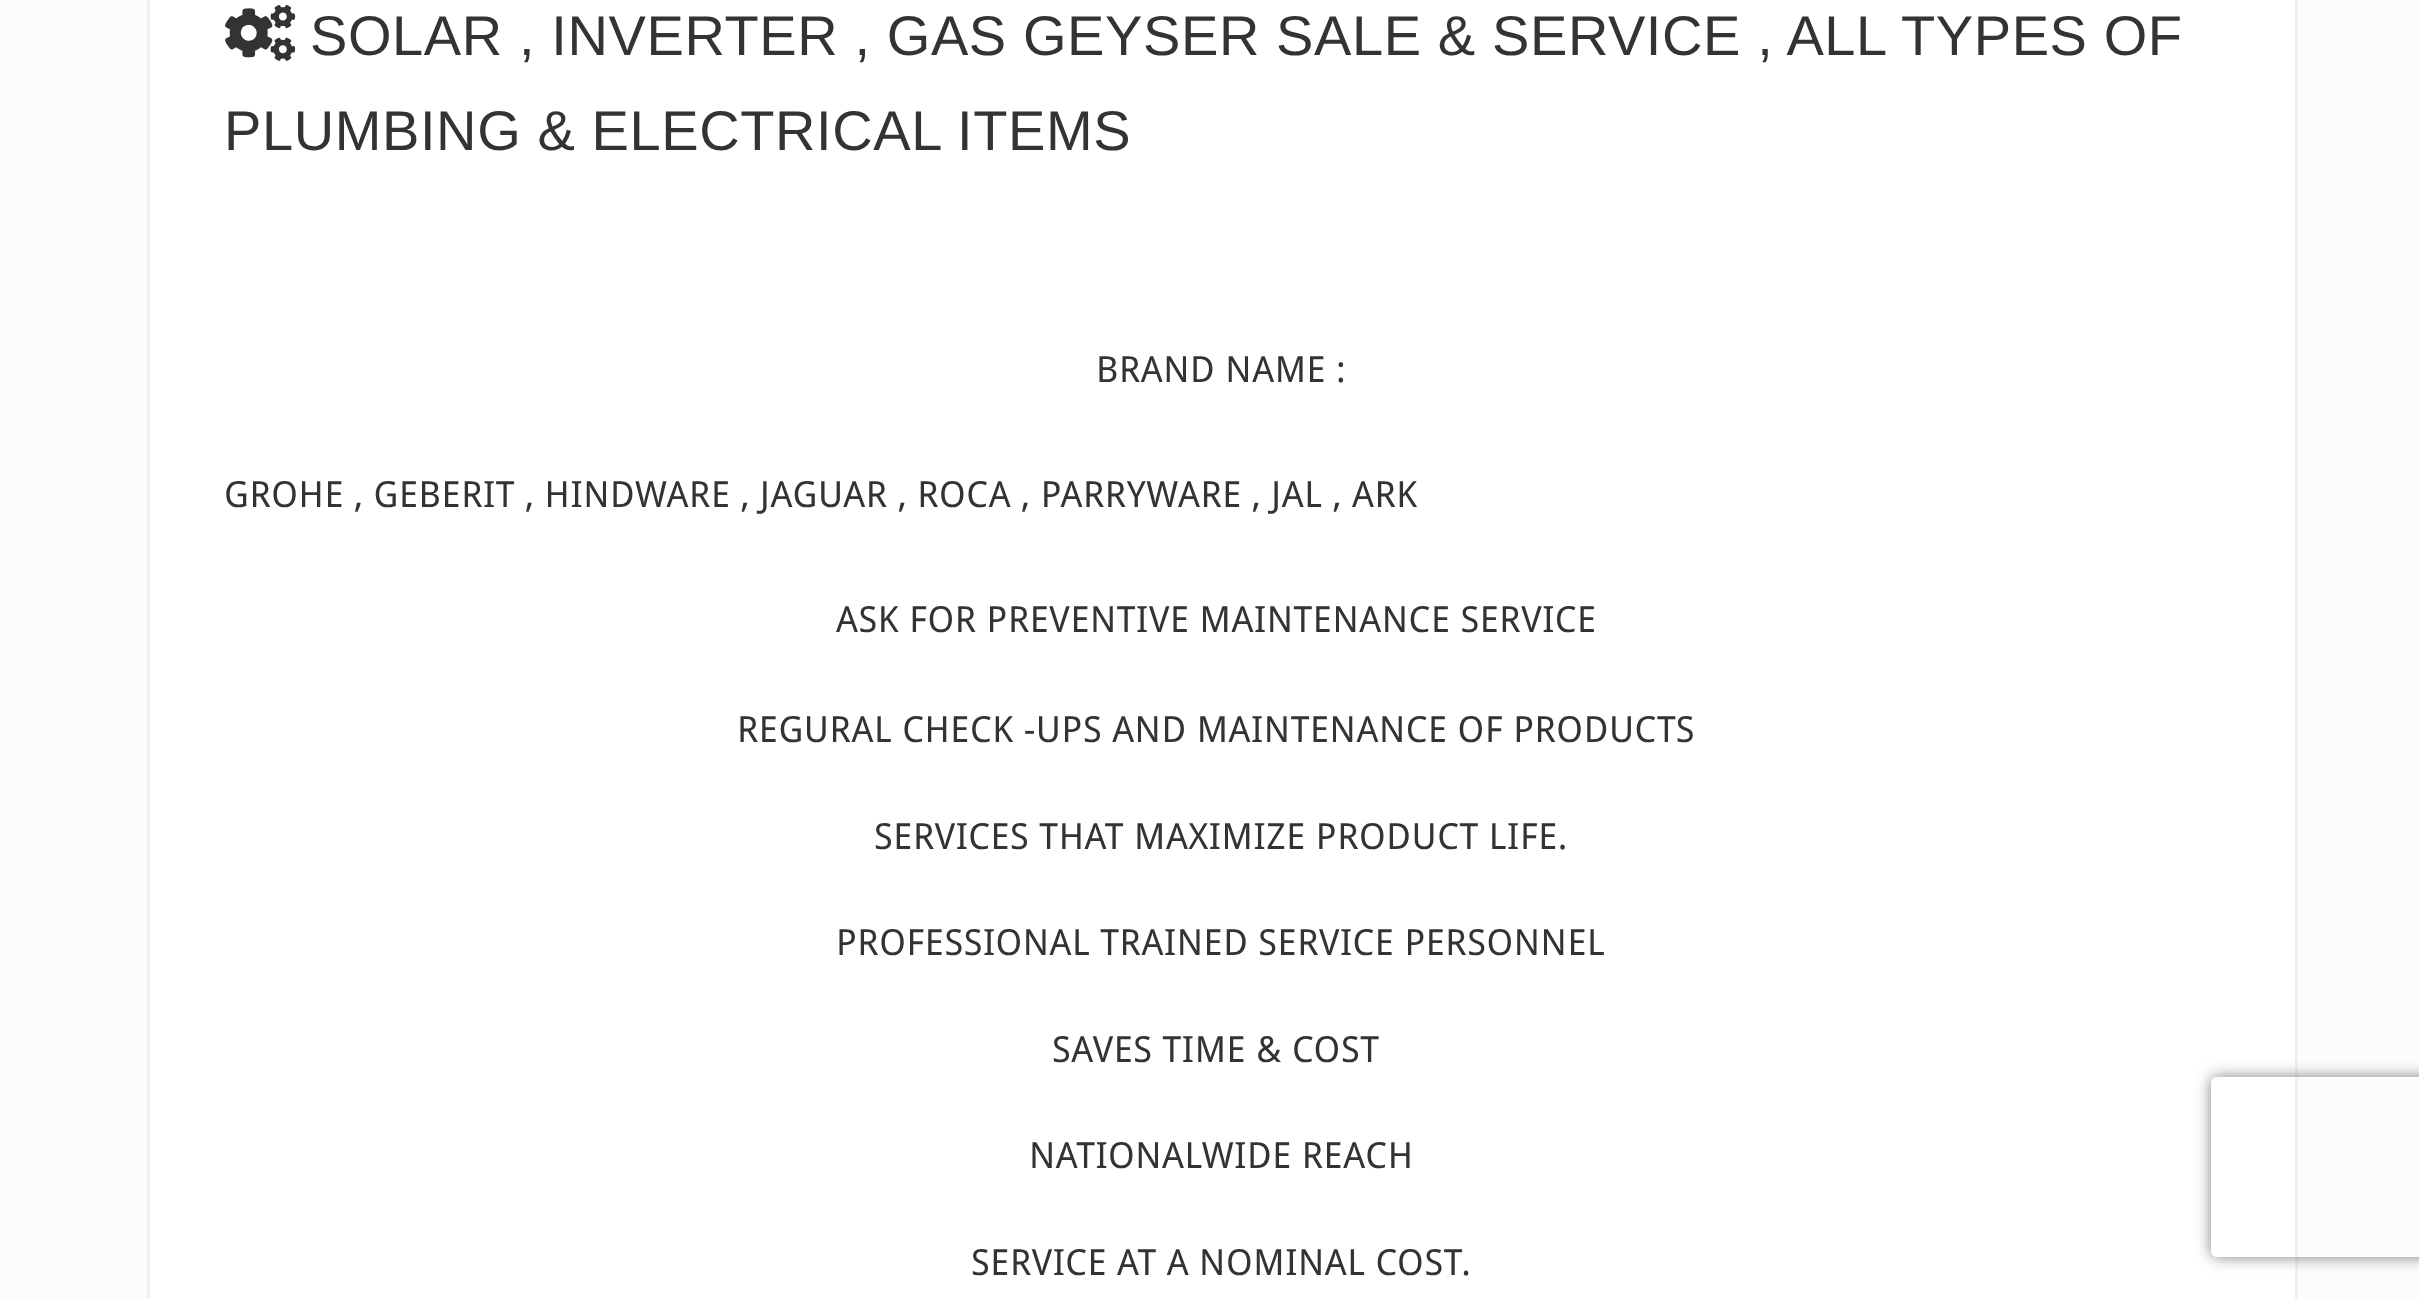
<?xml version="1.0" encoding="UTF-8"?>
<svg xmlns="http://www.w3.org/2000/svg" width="2419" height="1299">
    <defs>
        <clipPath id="clip1"><path d="M 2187 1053 H 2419 V 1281 H 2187 Z M 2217 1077 H 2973 C 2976.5 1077 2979 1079.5 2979 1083 V 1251 C 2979 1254.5 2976.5 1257 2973 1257 H 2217 C 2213.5 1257 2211 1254.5 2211 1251 V 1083 C 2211 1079.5 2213.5 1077 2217 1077 Z" clip-rule="evenodd"/></clipPath>
        <filter id="blur1" x="-50%" y="-200%" width="200%" height="500%"><feGaussianBlur stdDeviation="7.5"/></filter>
    </defs>
    <rect width="100%" height="100%" fill="#FCFCFC"/>
    <rect x="148.5" y="-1.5" width="2148" height="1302" fill="#FFFFFF" stroke="#F0F0F0" stroke-width="3"/>
    <image x="225" y="5" width="71" height="56" href="img_01.png"/>
    <text x="310" y="55" font-family="Liberation Sans" font-size="56" letter-spacing="0.6" fill="#333333">SOLAR , INVERTER , GAS GEYSER SALE &amp; SERVICE , ALL TYPES OF</text>
    <text x="224" y="150" font-family="Liberation Sans" font-size="56" letter-spacing="0.6" fill="#333333">PLUMBING &amp; ELECTRICAL ITEMS</text>
    <text x="1096" y="382" font-family="Droid Sans" font-size="36" letter-spacing="0.6" fill="#333333">BRAND NAME :</text>
    <text x="224" y="507" font-family="Droid Sans" font-size="36" letter-spacing="0.6" fill="#333333">GROHE , GEBERIT , HINDWARE , JAGUAR , ROCA , PARRYWARE , JAL , ARK</text>
    <text x="836" y="632" font-family="Droid Sans" font-size="36" letter-spacing="0.6" fill="#333333">ASK FOR PREVENTIVE MAINTENANCE SERVICE</text>
    <text x="737" y="742" font-family="Droid Sans" font-size="36" letter-spacing="0.6" fill="#333333">REGURAL CHECK -UPS AND MAINTENANCE OF PRODUCTS</text>
    <text x="874" y="849" font-family="Droid Sans" font-size="36" letter-spacing="0.6" fill="#333333">SERVICES THAT MAXIMIZE PRODUCT LIFE.</text>
    <text x="836" y="955" font-family="Droid Sans" font-size="36" letter-spacing="0.6" fill="#333333">PROFESSIONAL TRAINED SERVICE PERSONNEL</text>
    <text x="1052" y="1062" font-family="Droid Sans" font-size="36" letter-spacing="0.6" fill="#333333">SAVES TIME &amp; COST</text>
    <text x="1029" y="1168" font-family="Droid Sans" font-size="36" letter-spacing="0.6" fill="#333333">NATIONALWIDE REACH</text>
    <text x="971" y="1275" font-family="Droid Sans" font-size="36" letter-spacing="0.6" fill="#333333">SERVICE AT A NOMINAL COST.</text>
    <g clip-path="url(#clip1)">
        <rect x="2211" y="1077" width="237" height="180" rx="6" fill="#808080" filter="url(#blur1)"/>
    </g>
</svg>
